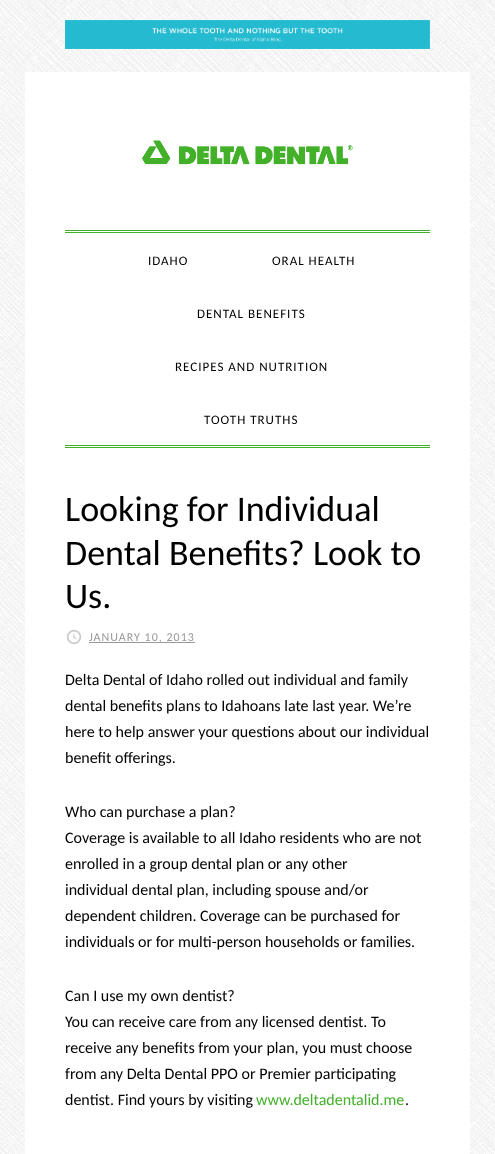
<?xml version="1.0" encoding="UTF-8"?>
<svg xmlns="http://www.w3.org/2000/svg" width="495" height="1154">
    <rect width="100%" height="100%" fill="#FFFFFF"/>
    <image x="0" y="0" width="495" height="1154" href="img_01.png"/>
    <image x="65" y="20" width="365" height="29" href="img_02.png"/>
    <rect x="25" y="72" width="445" height="1082" fill="#FFFFFF"/>
    <image x="141" y="140" width="212" height="25" href="img_03.png"/>
    <rect x="65" y="230" width="365" height="1" fill="#43B02A"/>
    <rect x="65" y="232" width="365" height="1" fill="#43B02A"/>
    <rect x="65" y="445" width="365" height="1" fill="#43B02A"/>
    <rect x="65" y="447" width="365" height="1" fill="#43B02A"/>
    <text x="148" y="265" font-family="Carlito" font-size="13" letter-spacing="1" fill="#000000">IDAHO</text>
    <text x="272" y="265" font-family="Carlito" font-size="13" letter-spacing="1" fill="#000000">ORAL HEALTH</text>
    <text x="197" y="318" font-family="Carlito" font-size="13" letter-spacing="1" fill="#000000">DENTAL BENEFITS</text>
    <text x="175" y="371" font-family="Carlito" font-size="13" letter-spacing="1" fill="#000000">RECIPES AND NUTRITION</text>
    <text x="204" y="424" font-family="Carlito" font-size="13" letter-spacing="1" fill="#000000">TOOTH TRUTHS</text>
    <text font-family="Carlito" font-size="36" fill="#000000">
        <tspan x="65" y="521">Looking for Individual</tspan>
        <tspan x="65" y="565">Dental Benefits? Look to</tspan>
        <tspan x="65" y="608">Us.</tspan>
    </text>
    <image x="66" y="629" width="16" height="16" href="img_04.png"/>
    <rect x="89" y="642" width="106" height="1" fill="#999999"/>
    <text x="89" y="641" font-family="Carlito" font-size="12" letter-spacing="1" fill="#999999">JANUARY 10, 2013</text>
    <text font-family="Carlito" font-size="16" fill="#000000">
        <tspan x="65" y="685">Delta Dental of Idaho rolled out individual and family</tspan>
        <tspan x="65" y="711">dental benefits plans to Idahoans late last year. We’re</tspan>
        <tspan x="65" y="737">here to help answer your questions about our individual</tspan>
        <tspan x="65" y="763">benefit offerings.</tspan>
    </text>
    <text font-family="Carlito" font-size="16" fill="#000000">
        <tspan x="65" y="817">Who can purchase a plan?</tspan>
        <tspan x="65" y="843">Coverage is available to all Idaho residents who are not</tspan>
        <tspan x="65" y="869">enrolled in a group dental plan or any other</tspan>
        <tspan x="65" y="895">individual dental plan, including spouse and/or</tspan>
        <tspan x="65" y="921">dependent children. Coverage can be purchased for</tspan>
        <tspan x="65" y="947">individuals or for multi-person households or families.</tspan>
    </text>
    <text font-family="Carlito" font-size="16" fill="#000000">
        <tspan x="65" y="1001">Can I use my own dentist?</tspan>
        <tspan x="65" y="1027">You can receive care from any licensed dentist. To</tspan>
        <tspan x="65" y="1053">receive any benefits from your plan, you must choose</tspan>
        <tspan x="65" y="1079">from any Delta Dental PPO or Premier participating</tspan>
        <tspan x="65" y="1105">dentist. Find yours by visiting</tspan>
    </text>
    <text x="256" y="1105" font-family="Carlito" font-size="16" fill="#43B02A">www.deltadentalid.me</text>
    <text x="405" y="1105" font-family="Carlito" font-size="16" fill="#000000">.</text>
</svg>
